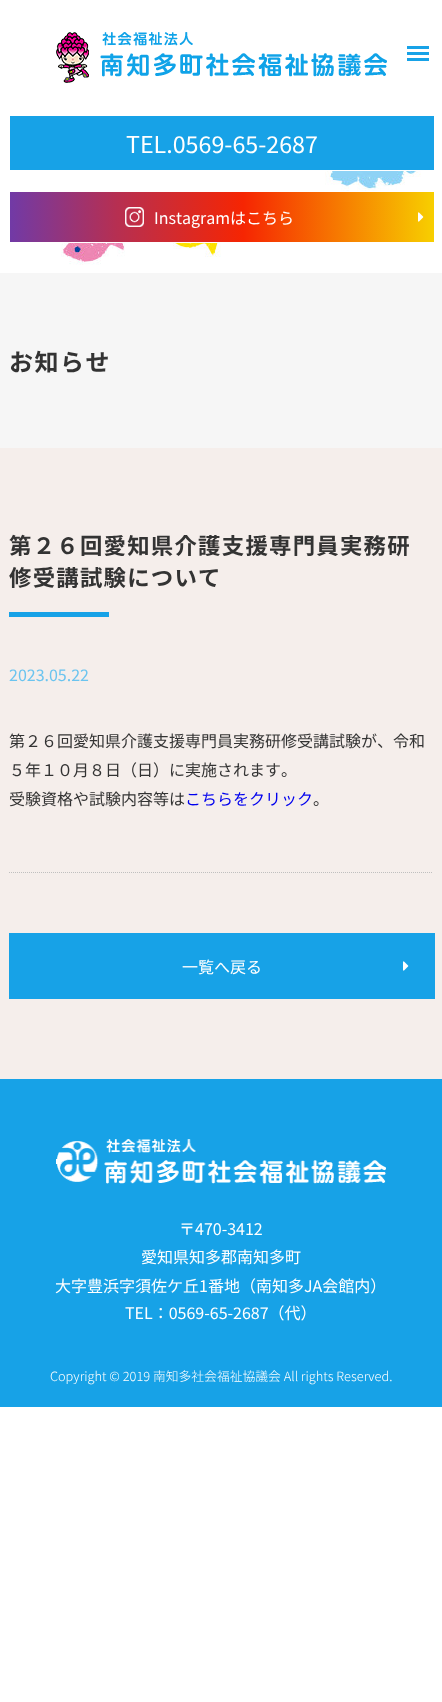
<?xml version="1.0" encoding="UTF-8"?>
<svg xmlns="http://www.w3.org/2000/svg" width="442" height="1702">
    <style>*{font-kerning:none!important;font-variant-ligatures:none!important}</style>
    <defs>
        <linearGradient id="g1" gradientUnits="userSpaceOnUse" x1="434" y1="217" x2="10" y2="217"><stop offset="0" stop-color="#F7CF00"/><stop offset="0.45" stop-color="#F62502"/><stop offset="0.75" stop-color="#B62F52"/><stop offset="1" stop-color="#713AA6"/></linearGradient>
    </defs>
    <rect width="100%" height="100%" fill="#FFFFFF"/>
    <rect x="407" y="46" width="22" height="3" fill="#17A2E7"/>
    <rect x="407" y="52" width="22" height="3" fill="#17A2E7"/>
    <rect x="407" y="58" width="22" height="3" fill="#17A2E7"/>
    <image x="61" y="171" width="368" height="94" href="img_01.png"/>
    <image x="56" y="32" width="331" height="51" href="img_02.png"/>
    <rect x="10" y="116" width="424" height="54" fill="#17A2E7"/>
    <text x="126" y="153" font-family="Noto Sans JP" font-size="23.25" fill="#FFFFFF">TEL.0569-65-2687</text>
    <rect x="10" y="192" width="424" height="50" fill="url(#g1)"/>
    <rect x="9.5" y="191.5" width="425" height="51" fill="none" stroke="#FFFFFF"/>
    <image x="125" y="207" width="19" height="20" href="img_03.png"/>
    <text x="154" y="224" font-family="Noto Sans JP" font-size="16" fill="#FFFFFF">Instagramはこちら</text>
    <image x="418" y="212" width="6" height="10" href="img_04.png"/>
    <rect x="0" y="273" width="442" height="175" fill="#F6F6F6"/>
    <text x="9" y="371" font-family="Noto Sans JP" font-size="24" font-weight="700" letter-spacing="1.5" fill="#333333">お知らせ</text>
    <rect x="0" y="448" width="442" height="631" fill="#F5EEEB"/>
    <text font-family="Noto Sans JP" font-size="22.4" font-weight="700" letter-spacing="1.25" fill="#333333">
        <tspan x="9" y="554">第２６回愛知県介護支援専門員実務研</tspan>
        <tspan x="9" y="586">修受講試験について</tspan>
    </text>
    <rect x="9" y="612" width="100" height="5" fill="#17A2E7"/>
    <text x="9" y="681" font-family="Noto Sans JP" font-size="16" fill="#6BC4EF">2023.05.22</text>
    <path d="M 9 872.5 H 433" fill="none" stroke="#BFBFBF" stroke-dasharray="1 1"/>
    <text font-family="Noto Sans JP" font-size="16" fill="#333333">
        <tspan x="9" y="747">第２６回愛知県介護支援専門員実務研修受講試験が、令和</tspan>
        <tspan x="9" y="776">５年１０月８日（日）に実施されます。</tspan>
        <tspan x="9" y="805">受験資格や試験内容等は</tspan>
    </text>
    <text x="185" y="805" font-family="Noto Sans JP" font-size="16" fill="#0000EE">こちらをクリック</text>
    <text x="313" y="805" font-family="Noto Sans JP" font-size="16" fill="#333333">。</text>
    <rect x="9" y="933" width="426" height="66" fill="#17A2E7"/>
    <text x="182" y="973" font-family="Noto Sans JP" font-size="16" fill="#FFFFFF">一覧へ戻る</text>
    <image x="403" y="961" width="6" height="10" href="img_05.png"/>
    <rect x="0" y="1079" width="442" height="328" fill="#17A2E7"/>
    <image x="56" y="1139" width="330" height="45" href="img_06.png"/>
    <text x="179" y="1235" font-family="Noto Sans JP" font-size="16" fill="#FFFFFF">〒470-3412</text>
    <text x="141" y="1263" font-family="Noto Sans JP" font-size="16" fill="#FFFFFF">愛知県知多郡南知多町</text>
    <text x="55" y="1292" font-family="Noto Sans JP" font-size="16" fill="#FFFFFF">大字豊浜字須佐ケ丘1番地（南知多JA会館内）</text>
    <text x="125" y="1319" font-family="Noto Sans JP" font-size="16" fill="#FFFFFF">TEL：0569-65-2687（代）</text>
    <text x="50" y="1381" font-family="Noto Sans JP" font-size="12.8" font-weight="300" fill="#FFFFFF">Copyright © 2019 南知多社会福祉協議会 All rights Reserved.</text>
</svg>
